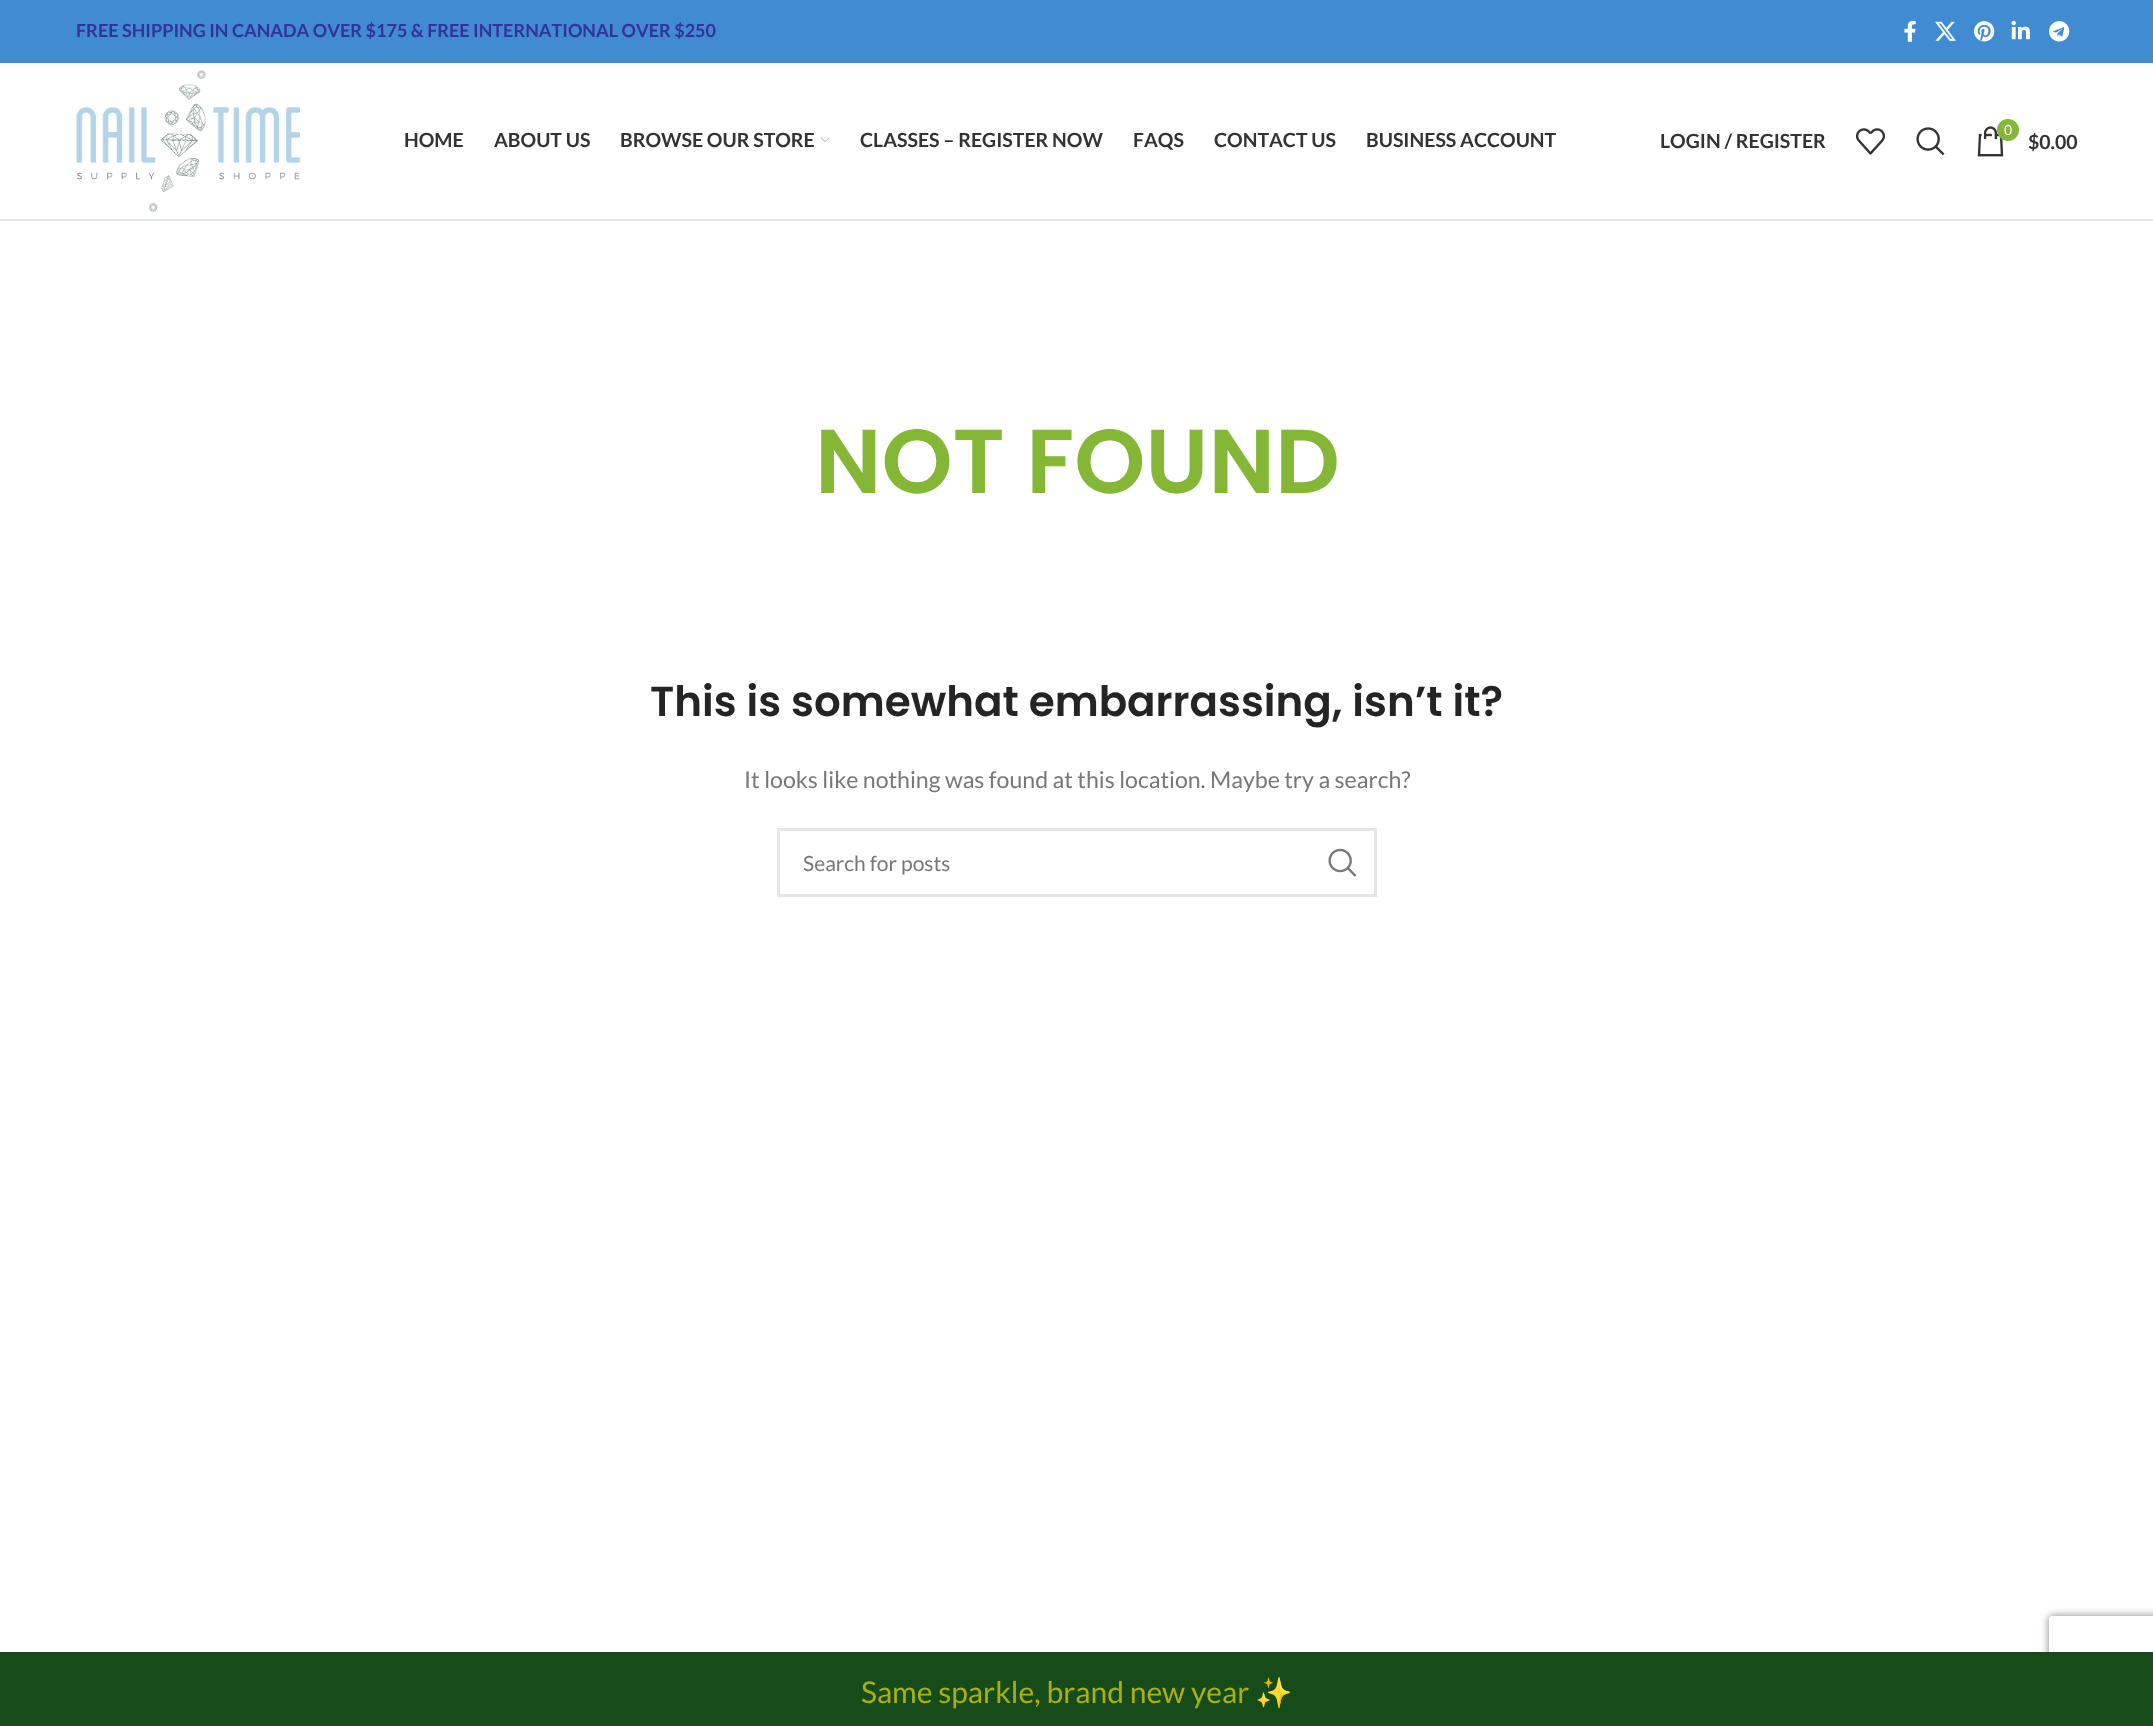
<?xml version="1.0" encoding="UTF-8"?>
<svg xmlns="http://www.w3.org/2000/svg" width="2153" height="1726">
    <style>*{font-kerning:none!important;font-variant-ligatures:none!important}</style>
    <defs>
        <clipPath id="clip1"><path d="M 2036 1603 H 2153 V 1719 H 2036 Z M 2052 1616 H 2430 C 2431.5 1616 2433 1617.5 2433 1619 V 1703 C 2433 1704.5 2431.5 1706 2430 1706 H 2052 C 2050.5 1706 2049 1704.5 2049 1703 V 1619 C 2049 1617.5 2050.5 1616 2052 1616 Z" clip-rule="evenodd"/></clipPath>
        <filter id="blur1" x="-50%" y="-200%" width="200%" height="500%"><feGaussianBlur stdDeviation="4"/></filter>
    </defs>
    <rect width="100%" height="100%" fill="#FFFFFF"/>
    <rect x="0" y="0" width="2153" height="63" fill="#408BD1"/>
    <text x="76" y="37" font-family="Lato" font-size="18" font-weight="700" fill="#333399">FREE SHIPPING IN CANADA OVER $175 &amp; FREE INTERNATIONAL OVER $250</text>
    <image x="1904" y="20" width="12" height="22" href="img_01.png"/>
    <image x="1935" y="21" width="21" height="20" href="img_02.png"/>
    <image x="1974" y="21" width="21" height="21" href="img_03.png"/>
    <image x="2011" y="20" width="19" height="20" href="img_04.png"/>
    <image x="2049" y="21" width="21" height="21" href="img_05.png"/>
    <rect x="0" y="219" width="2153" height="2" fill="#E6E6E6"/>
    <image x="76" y="70" width="224" height="142" href="img_06.png"/>
    <text x="404" y="147" font-family="Lato" font-size="19.5" font-weight="700" fill="#333333">HOME</text>
    <text x="494" y="147" font-family="Lato" font-size="19.5" font-weight="700" fill="#333333">ABOUT US</text>
    <text x="620" y="147" font-family="Lato" font-size="19.5" font-weight="700" fill="#333333">BROWSE OUR STORE</text>
    <image x="820" y="137" width="10" height="6" href="img_07.png"/>
    <text x="860" y="147" font-family="Lato" font-size="19.5" font-weight="700" fill="#333333">CLASSES – REGISTER NOW</text>
    <text x="1133" y="147" font-family="Lato" font-size="19.5" font-weight="700" fill="#333333">FAQS</text>
    <text x="1214" y="147" font-family="Lato" font-size="19.5" font-weight="700" fill="#333333">CONTACT US</text>
    <text x="1366" y="147" font-family="Lato" font-size="19.5" font-weight="700" fill="#333333">BUSINESS ACCOUNT</text>
    <text x="1660" y="148" font-family="Lato" font-size="19.5" font-weight="700" fill="#333333">LOGIN / REGISTER</text>
    <image x="1856" y="128" width="29" height="27" href="img_08.png"/>
    <image x="1916" y="127" width="29" height="29" href="img_09.png"/>
    <image x="1977" y="126" width="27" height="31" href="img_10.png"/>
    <circle cx="2008" cy="130" r="11" fill="#83B735"/>
    <text x="2004" y="135" font-family="Lato" font-size="14" fill="#FFFFFF">0</text>
    <text x="2028" y="149" font-family="Lato" font-size="19.5" font-weight="700" fill="#333333">$0.00</text>
    <text x="815" y="493" font-family="Poppins" font-size="90.5" font-weight="600" fill="#83B735">NOT FOUND</text>
    <text x="650" y="716" font-family="Poppins" font-size="42" font-weight="600" fill="#242424">This is somewhat embarrassing, isn’t it?</text>
    <text x="744" y="788" font-family="Lato" font-size="23.1" fill="#777777">It looks like nothing was found at this location. Maybe try a search?</text>
    <rect x="778.5" y="829.5" width="597" height="66" fill="none" stroke="#E6E6E6" stroke-width="3"/>
    <text x="803" y="871" font-family="Lato" font-size="21" fill="#777777">Search for posts</text>
    <image x="1328" y="848" width="29" height="29" href="img_11.png"/>
    <g clip-path="url(#clip1)">
        <rect x="2049" y="1616" width="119" height="90" rx="3" fill="#808080" filter="url(#blur1)"/>
    </g>
    <rect x="0" y="1652" width="2153" height="74" fill="#154C1A"/>
    <text x="861" y="1703" font-family="Lato" font-size="30" fill="#ADAF11">Same sparkle, brand new year</text>
    <text x="1255" y="1703" font-family="Noto Color Emoji" font-size="30" fill="#ADAF11">✨</text>
</svg>
